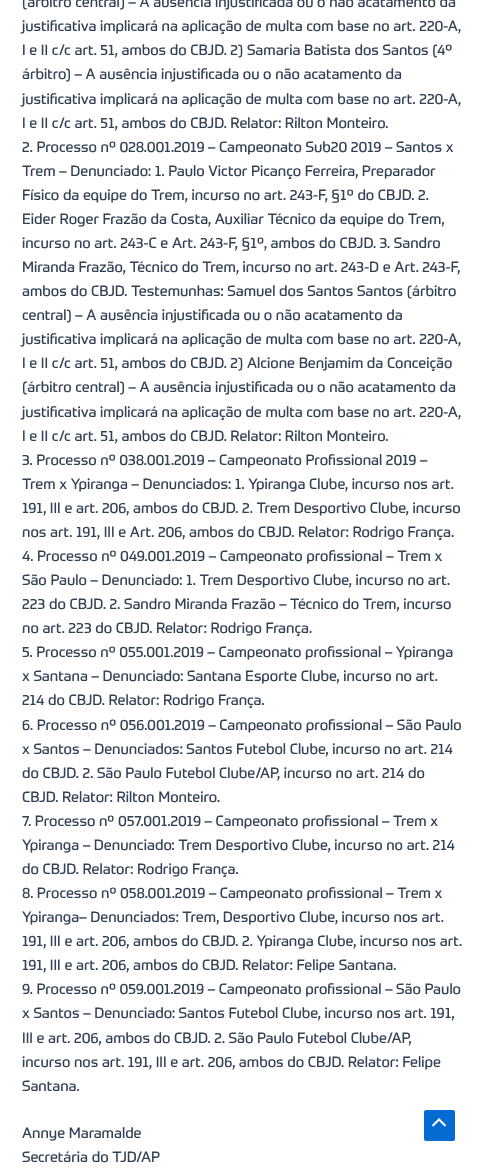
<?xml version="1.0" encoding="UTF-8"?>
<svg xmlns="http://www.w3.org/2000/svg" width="485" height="1171">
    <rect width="100%" height="100%" fill="#FFFFFF"/>
    <text font-family="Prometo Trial" font-size="14.6" fill="#334155">
        <tspan x="22" y="7">(árbitro central) – A ausência injustificada ou o não acatamento da</tspan>
        <tspan x="22" y="31">justificativa implicará na aplicação de multa com base no art. 220-A,</tspan>
        <tspan x="22" y="55">I e II c/c art. 51, ambos do CBJD. 2) Samaria Batista dos Santos (4º</tspan>
        <tspan x="22" y="79">árbitro) – A ausência injustificada ou o não acatamento da</tspan>
        <tspan x="22" y="104">justificativa implicará na aplicação de multa com base no art. 220-A,</tspan>
        <tspan x="22" y="128">I e II c/c art. 51, ambos do CBJD. Relator: Rilton Monteiro.</tspan>
        <tspan x="22" y="152">2. Processo nº 028.001.2019 – Campeonato Sub20 2019 – Santos x</tspan>
        <tspan x="22" y="176">Trem – Denunciado: 1. Paulo Victor Picanço Ferreira, Preparador</tspan>
        <tspan x="22" y="200">Físico da equipe do Trem, incurso no art. 243-F, §1º do CBJD. 2.</tspan>
        <tspan x="22" y="224">Eider Roger Frazão da Costa, Auxiliar Técnico da equipe do Trem,</tspan>
        <tspan x="22" y="248">incurso no art. 243-C e Art. 243-F, §1º, ambos do CBJD. 3. Sandro</tspan>
        <tspan x="22" y="272">Miranda Frazão, Técnico do Trem, incurso no art. 243-D e Art. 243-F,</tspan>
        <tspan x="22" y="296">ambos do CBJD. Testemunhas: Samuel dos Santos Santos (árbitro</tspan>
        <tspan x="22" y="320">central) – A ausência injustificada ou o não acatamento da</tspan>
        <tspan x="22" y="344">justificativa implicará na aplicação de multa com base no art. 220-A,</tspan>
        <tspan x="22" y="368">I e II c/c art. 51, ambos do CBJD. 2) Alcione Benjamim da Conceição</tspan>
        <tspan x="22" y="392">(árbitro central) – A ausência injustificada ou o não acatamento da</tspan>
        <tspan x="22" y="417">justificativa implicará na aplicação de multa com base no art. 220-A,</tspan>
        <tspan x="22" y="441">I e II c/c art. 51, ambos do CBJD. Relator: Rilton Monteiro.</tspan>
        <tspan x="22" y="465">3. Processo nº 038.001.2019 – Campeonato Profissional 2019 –</tspan>
        <tspan x="22" y="489">Trem x Ypiranga – Denunciados: 1. Ypiranga Clube, incurso nos art.</tspan>
        <tspan x="22" y="513">191, III e art. 206, ambos do CBJD. 2. Trem Desportivo Clube, incurso</tspan>
        <tspan x="22" y="537">nos art. 191, III e Art. 206, ambos do CBJD. Relator: Rodrigo França.</tspan>
        <tspan x="22" y="561">4. Processo nº 049.001.2019 – Campeonato profissional – Trem x</tspan>
        <tspan x="22" y="585">São Paulo – Denunciado: 1. Trem Desportivo Clube, incurso no art.</tspan>
        <tspan x="22" y="609">223 do CBJD. 2. Sandro Miranda Frazão – Técnico do Trem, incurso</tspan>
        <tspan x="22" y="633">no art. 223 do CBJD. Relator: Rodrigo França.</tspan>
        <tspan x="22" y="657">5. Processo nº 055.001.2019 – Campeonato profissional – Ypiranga</tspan>
        <tspan x="22" y="681">x Santana – Denunciado: Santana Esporte Clube, incurso no art.</tspan>
        <tspan x="22" y="705">214 do CBJD. Relator: Rodrigo França.</tspan>
        <tspan x="22" y="730">6. Processo nº 056.001.2019 – Campeonato profissional – São Paulo</tspan>
        <tspan x="22" y="754">x Santos – Denunciados: Santos Futebol Clube, incurso no art. 214</tspan>
        <tspan x="22" y="778">do CBJD. 2. São Paulo Futebol Clube/AP, incurso no art. 214 do</tspan>
        <tspan x="22" y="802">CBJD. Relator: Rilton Monteiro.</tspan>
        <tspan x="22" y="826">7. Processo nº 057.001.2019 – Campeonato profissional – Trem x</tspan>
        <tspan x="22" y="850">Ypiranga – Denunciado: Trem Desportivo Clube, incurso no art. 214</tspan>
        <tspan x="22" y="874">do CBJD. Relator: Rodrigo França.</tspan>
        <tspan x="22" y="898">8. Processo nº 058.001.2019 – Campeonato profissional – Trem x</tspan>
        <tspan x="22" y="922">Ypiranga– Denunciados: Trem, Desportivo Clube, incurso nos art.</tspan>
        <tspan x="22" y="946">191, III e art. 206, ambos do CBJD. 2. Ypiranga Clube, incurso nos art.</tspan>
        <tspan x="22" y="970">191, III e art. 206, ambos do CBJD. Relator: Felipe Santana.</tspan>
        <tspan x="22" y="994">9. Processo nº 059.001.2019 – Campeonato profissional – São Paulo</tspan>
        <tspan x="22" y="1018">x Santos – Denunciado: Santos Futebol Clube, incurso nos art. 191,</tspan>
        <tspan x="22" y="1043">III e art. 206, ambos do CBJD. 2. São Paulo Futebol Clube/AP,</tspan>
        <tspan x="22" y="1067">incurso nos art. 191, III e art. 206, ambos do CBJD. Relator: Felipe</tspan>
        <tspan x="22" y="1091">Santana.</tspan>
    </text>
    <text font-family="Prometo Trial" font-size="14.6" fill="#334155">
        <tspan x="22" y="1138">Annye Maramalde</tspan>
        <tspan x="22" y="1162">Secretária do TJD/AP</tspan>
    </text>
    <rect x="424" y="1110" width="31" height="31" rx="2" fill="#046BD2"/>
    <image x="432" y="1118" width="15" height="9" href="img_01.png"/>
</svg>
